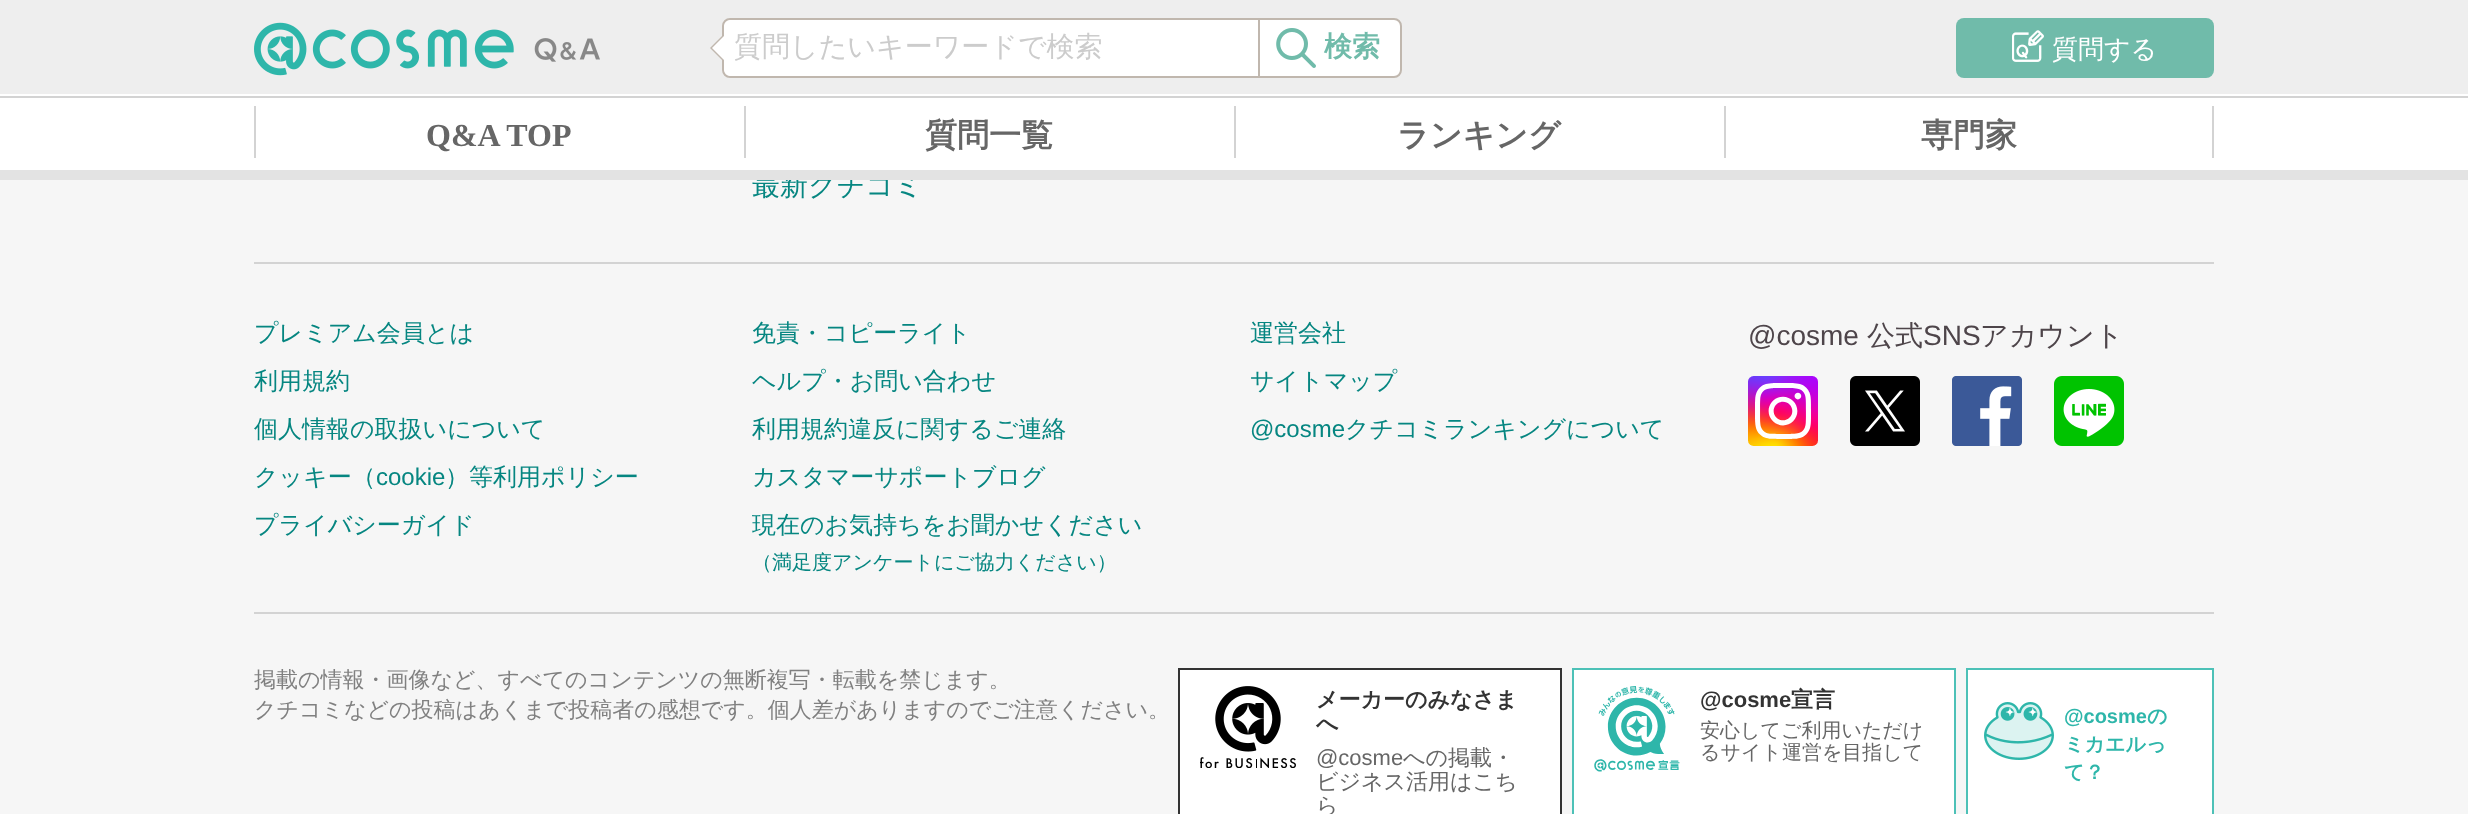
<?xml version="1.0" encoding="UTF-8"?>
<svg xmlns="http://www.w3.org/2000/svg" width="2468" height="814">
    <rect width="100%" height="100%" fill="#F6F6F6"/>
    <rect x="0" y="0" width="2468" height="94" fill="#EEEEEE"/>
    <image x="254" y="22" width="346" height="54" href="img_01.png"/>
    <rect x="723" y="19" width="678" height="58" rx="7" fill="#FFFFFF" stroke="#C0B7AE" stroke-width="2"/>
    <path d="M 724 34 V 62 L 710 48 Z" fill="#C0B7AE"/>
    <path d="M 732 20 H 1250 V 76 H 732 C 727.5 76 724 72.5 724 68 V 28 C 724 23.5 727.5 20 732 20 Z" fill="#FFFFFF"/>
    <text x="734" y="56" font-family="WenQuanYi Zen Hei" font-size="28" font-weight="500" fill="#CCCCCC">質問したいキーワードで検索</text>
    <rect x="1258" y="20" width="2" height="56" fill="#C0B7AE"/>
    <image x="1276" y="28" width="40" height="40" href="img_02.png"/>
    <text x="1324" y="56" font-family="WenQuanYi Zen Hei" font-size="28" font-weight="700" fill="#70BBAA">検索</text>
    <path d="M 724 36 V 60 L 712 48 Z" fill="#FFFFFF"/>
    <rect x="1956" y="18" width="258" height="60" rx="8" fill="#70BBAA"/>
    <image x="2012" y="30" width="32" height="32" href="img_03.png"/>
    <text x="2052" y="58" font-family="WenQuanYi Zen Hei" font-size="26" font-weight="500" fill="#FFFFFF">質問する</text>
    <rect x="0" y="98" width="2468" height="72" fill="#FFFFFF"/>
    <rect x="0" y="96" width="2468" height="2" fill="#D3D3D3"/>
    <rect x="0" y="94" width="2468" height="2" fill="#FFFFFF"/>
    <rect x="254" y="106" width="2" height="52" fill="#D3D3D3"/>
    <text x="426" y="146" font-family="Liberation Serif" font-size="32" font-weight="700" fill="#666666">Q&amp;A TOP</text>
    <rect x="744" y="106" width="2" height="52" fill="#D3D3D3"/>
    <text x="925" y="146" font-family="WenQuanYi Zen Hei" font-size="32" font-weight="700" fill="#666666">質問一覧</text>
    <rect x="1234" y="106" width="2" height="52" fill="#D3D3D3"/>
    <text x="1397" y="146" font-family="WenQuanYi Zen Hei" font-size="32" font-weight="700" fill="#666666">ランキング</text>
    <rect x="1724" y="106" width="2" height="52" fill="#D3D3D3"/>
    <text x="1921" y="146" font-family="WenQuanYi Zen Hei" font-size="32" font-weight="700" fill="#666666">専門家</text>
    <rect x="2212" y="106" width="2" height="52" fill="#D3D3D3"/>
    <text x="752" y="195" font-family="WenQuanYi Zen Hei" font-size="28" font-weight="500" fill="#068681">最新クチコミ</text>
    <rect x="0" y="170" width="2468" height="10" fill="#E3E3E3"/>
    <rect x="254" y="262" width="1960" height="2" fill="#D3D3D3"/>
    <text x="254" y="341" font-family="WenQuanYi Zen Hei" font-size="24" font-weight="500" fill="#068681">プレミアム会員とは</text>
    <text x="254" y="389" font-family="WenQuanYi Zen Hei" font-size="24" font-weight="500" fill="#068681">利用規約</text>
    <text x="254" y="437" font-family="WenQuanYi Zen Hei" font-size="24" font-weight="500" fill="#068681">個人情報の取扱いについて</text>
    <text x="254" y="485" font-family="WenQuanYi Zen Hei" font-size="24" font-weight="500" fill="#068681">クッキー（</text>
    <text x="376" y="485" font-family="Liberation Sans" font-size="24" fill="#068681">cookie</text>
    <text x="445" y="485" font-family="WenQuanYi Zen Hei" font-size="24" font-weight="500" fill="#068681">）等利用ポリシー</text>
    <text x="254" y="533" font-family="WenQuanYi Zen Hei" font-size="24" font-weight="500" fill="#068681">プライバシーガイド</text>
    <text x="752" y="341" font-family="WenQuanYi Zen Hei" font-size="24" font-weight="500" fill="#068681">免責・コピーライト</text>
    <text x="752" y="389" font-family="WenQuanYi Zen Hei" font-size="24" font-weight="500" fill="#068681">ヘルプ・お問い合わせ</text>
    <text x="752" y="437" font-family="WenQuanYi Zen Hei" font-size="24" font-weight="500" fill="#068681">利用規約違反に関するご連絡</text>
    <text x="752" y="485" font-family="WenQuanYi Zen Hei" font-size="24" font-weight="500" fill="#068681">カスタマーサポートブログ</text>
    <text x="752" y="533" font-family="WenQuanYi Zen Hei" font-size="24" font-weight="500" fill="#068681">現在のお気持ちをお聞かせください</text>
    <text x="752" y="569" font-family="WenQuanYi Zen Hei" font-size="20" font-weight="500" fill="#068681">（満足度アンケートにご協力ください）</text>
    <text x="1250" y="341" font-family="WenQuanYi Zen Hei" font-size="24" font-weight="500" fill="#068681">運営会社</text>
    <text x="1250" y="389" font-family="WenQuanYi Zen Hei" font-size="24" font-weight="500" fill="#068681">サイトマップ</text>
    <text x="1250" y="437" font-family="Liberation Sans" font-size="24" fill="#068681">@cosme</text>
    <text x="1345" y="437" font-family="WenQuanYi Zen Hei" font-size="24" font-weight="500" fill="#068681">クチコミランキングについて</text>
    <text x="1748" y="345" font-family="Liberation Sans" font-size="28" fill="#4E454A">@cosme</text>
    <text x="1867" y="345" font-family="WenQuanYi Zen Hei" font-size="28" font-weight="500" fill="#4E454A">公式</text>
    <text x="1923" y="345" font-family="Liberation Sans" font-size="28" fill="#4E454A">SNS</text>
    <text x="1980" y="345" font-family="WenQuanYi Zen Hei" font-size="28" font-weight="500" fill="#4E454A">アカウント</text>
    <image x="1748" y="376" width="70" height="70" href="img_04.png"/>
    <image x="1850" y="376" width="70" height="70" href="img_05.png"/>
    <image x="1952" y="376" width="70" height="70" href="img_06.png"/>
    <image x="2054" y="376" width="70" height="70" href="img_07.png"/>
    <rect x="254" y="612" width="1960" height="2" fill="#D3D3D3"/>
    <text font-family="WenQuanYi Zen Hei" font-size="22" font-weight="500" fill="#808080">
        <tspan x="254" y="687">掲載の情報・画像など、すべてのコンテンツの無断複写・転載を禁じます。</tspan>
        <tspan x="254" y="717">クチコミなどの投稿はあくまで投稿者の感想です。個人差がありますのでご注意ください。</tspan>
    </text>
    <rect x="1179" y="669" width="382" height="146" fill="#FFFFFF" stroke="#333333" stroke-width="2"/>
    <image x="1200" y="686" width="96" height="82" href="img_08.png"/>
    <text font-family="WenQuanYi Zen Hei" font-size="22" font-weight="700" fill="#333333">
        <tspan x="1316" y="707">メーカーのみなさま</tspan>
        <tspan x="1316" y="731">へ</tspan>
    </text>
    <text x="1316" y="765" font-family="Liberation Sans" font-size="22" fill="#666666">@cosme</text>
    <text x="1403" y="765" font-family="WenQuanYi Zen Hei" font-size="22" font-weight="500" fill="#666666">への掲載・</text>
    <text font-family="WenQuanYi Zen Hei" font-size="22" font-weight="500" fill="#666666">
        <tspan x="1316" y="789">ビジネス活用はこち</tspan>
        <tspan x="1316" y="813">ら</tspan>
    </text>
    <rect x="1573" y="669" width="382" height="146" fill="#FFFFFF" stroke="#4DC1B7" stroke-width="2"/>
    <image x="1594" y="686" width="86" height="86" href="img_09.png"/>
    <text x="1700" y="707" font-family="Liberation Sans" font-size="22" font-weight="700" fill="#333333">@cosme</text>
    <text x="1791" y="707" font-family="WenQuanYi Zen Hei" font-size="22" font-weight="700" fill="#333333">宣言</text>
    <text font-family="WenQuanYi Zen Hei" font-size="20" font-weight="500" fill="#666666">
        <tspan x="1700" y="737">安心してご利用いただけ</tspan>
        <tspan x="1700" y="759">るサイト運営を目指して</tspan>
    </text>
    <rect x="1967" y="669" width="246" height="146" fill="#FFFFFF" stroke="#4DC1B7" stroke-width="2"/>
    <image x="1984" y="702" width="70" height="58" href="img_10.png"/>
    <text x="2064" y="723" font-family="Liberation Sans" font-size="20" font-weight="700" fill="#2EB6AA">@cosme</text>
    <text x="2147" y="723" font-family="WenQuanYi Zen Hei" font-size="20" font-weight="700" fill="#2EB6AA">の</text>
    <text font-family="WenQuanYi Zen Hei" font-size="20" font-weight="700" fill="#2EB6AA">
        <tspan x="2064" y="751">ミカエルっ</tspan>
        <tspan x="2064" y="779">て？</tspan>
    </text>
</svg>
